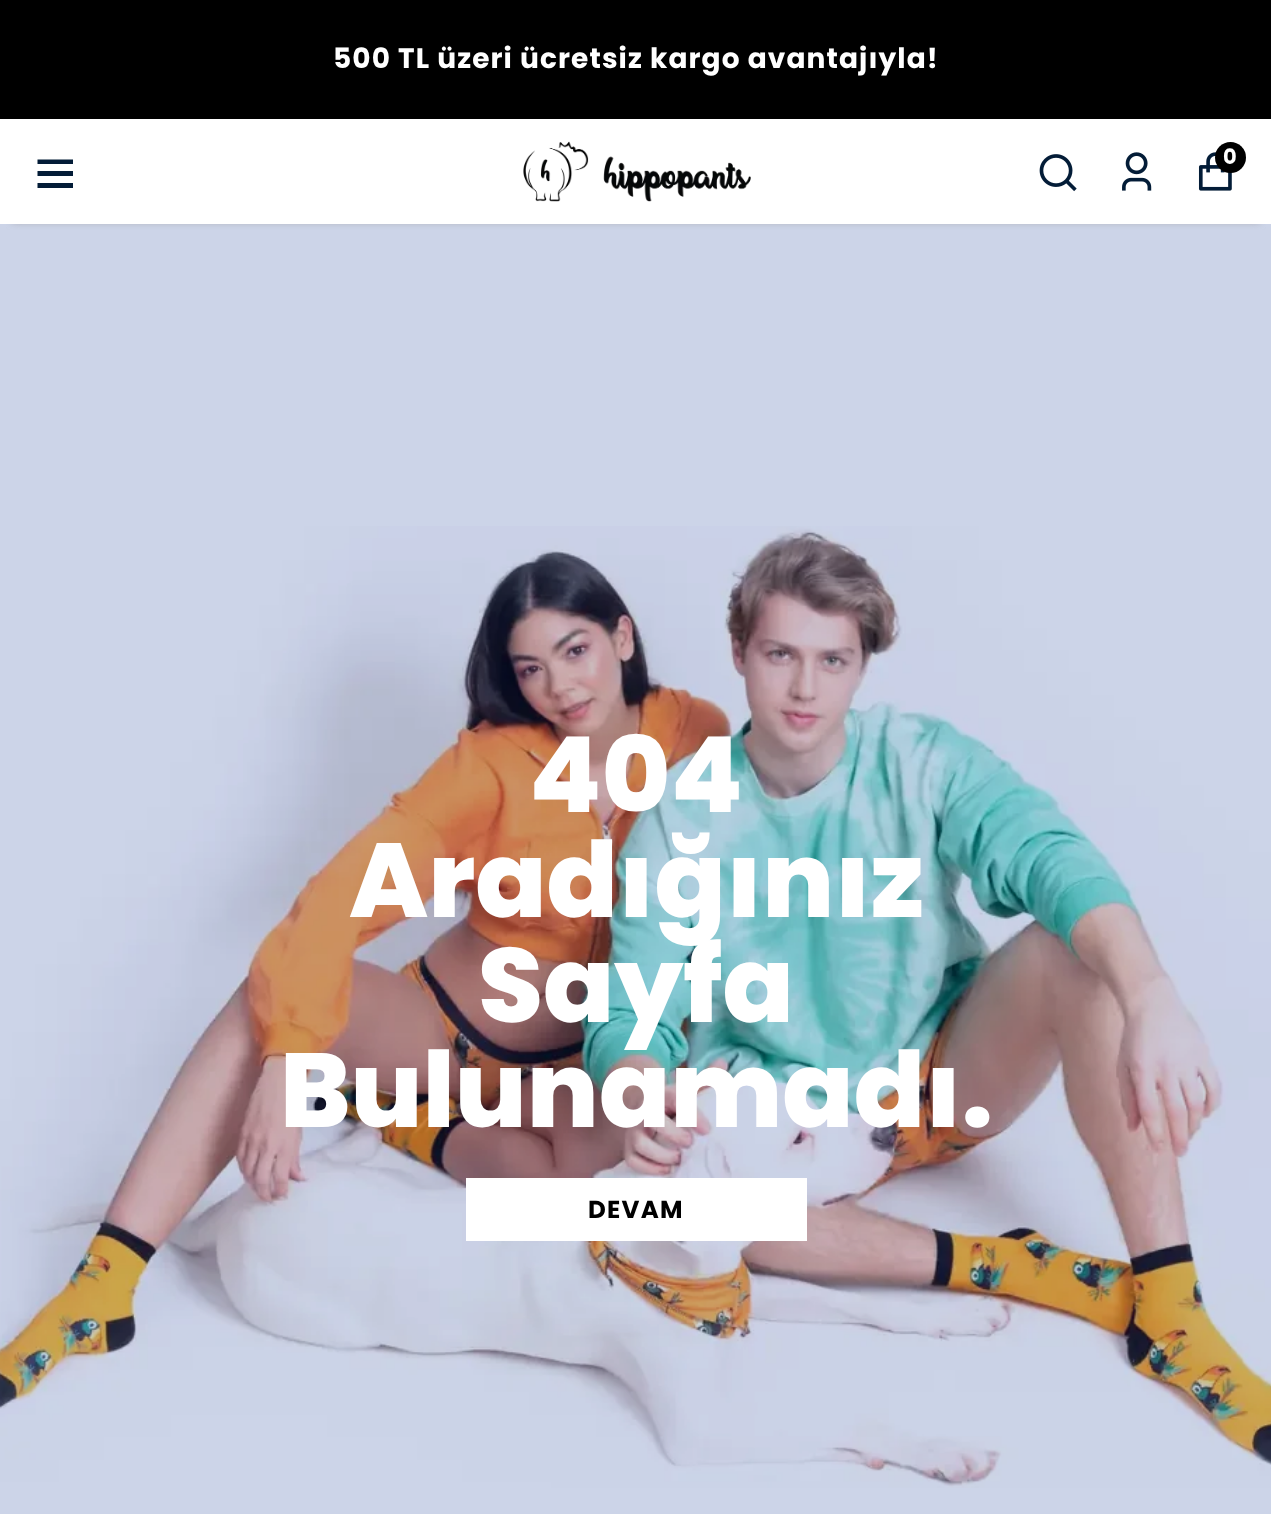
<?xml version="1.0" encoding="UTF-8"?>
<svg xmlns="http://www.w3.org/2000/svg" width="1271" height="1514">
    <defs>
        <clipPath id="clip1"><rect x="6" y="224" width="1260" height="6"/></clipPath>
        <filter id="blur1" x="-50%" y="-200%" width="200%" height="500%"><feGaussianBlur stdDeviation="4.5"/></filter>
    </defs>
    <rect width="100%" height="100%" fill="#FFFFFF"/>
    <rect x="0" y="224" width="1271" height="1290" fill="#CCD4E8"/>
    <rect x="0" y="0" width="1271" height="119" fill="#000000"/>
    <text x="333" y="68" font-family="Poppins" font-size="28" font-weight="700" letter-spacing="1.1" fill="#FFFFFF">500 TL üzeri ücretsiz kargo avantajıyla!</text>
    <g clip-path="url(#clip1)">
        <rect x="12" y="140" width="1248" height="81" fill="#989898" filter="url(#blur1)"/>
    </g>
    <image x="523" y="141" width="228" height="61" href="img_01.png"/>
    <image x="1039" y="154" width="38" height="38" href="img_02.png"/>
    <image x="1122" y="152" width="30" height="39" href="img_03.png"/>
    <image x="1198" y="152" width="34" height="39" href="img_04.png"/>
    <circle cx="1230.5" cy="157.5" r="15.5" fill="#000000"/>
    <text x="1223" y="164" font-family="Poppins" font-size="21" font-weight="700" fill="#FFFFFF">0</text>
    <path d="M 73 159.5 V 164 H 37.5 V 159.5 Z M 37.5 176 H 73 V 171 H 37.5 Z M 37.5 188 H 73 V 183 H 37.5 Z" fill="#031C37"/>
    <image x="0" y="526" width="1271" height="962" href="img_05.png"/>
    <text x="529" y="812" font-family="Poppins" font-size="105" font-weight="800" fill="#FFFFFF">404</text>
    <text x="349" y="917" font-family="Poppins" font-size="105" font-weight="800" fill="#FFFFFF">Aradığınız</text>
    <text x="478" y="1022" font-family="Poppins" font-size="105" font-weight="800" fill="#FFFFFF">Sayfa</text>
    <text x="280" y="1127" font-family="Poppins" font-size="105" font-weight="800" fill="#FFFFFF">Bulunamadı.</text>
    <rect x="466" y="1178" width="341" height="63" fill="#FFFFFF"/>
    <text x="588" y="1218" font-family="Poppins" font-size="24.5" font-weight="700" letter-spacing="1.25" fill="#000000">DEVAM</text>
</svg>
